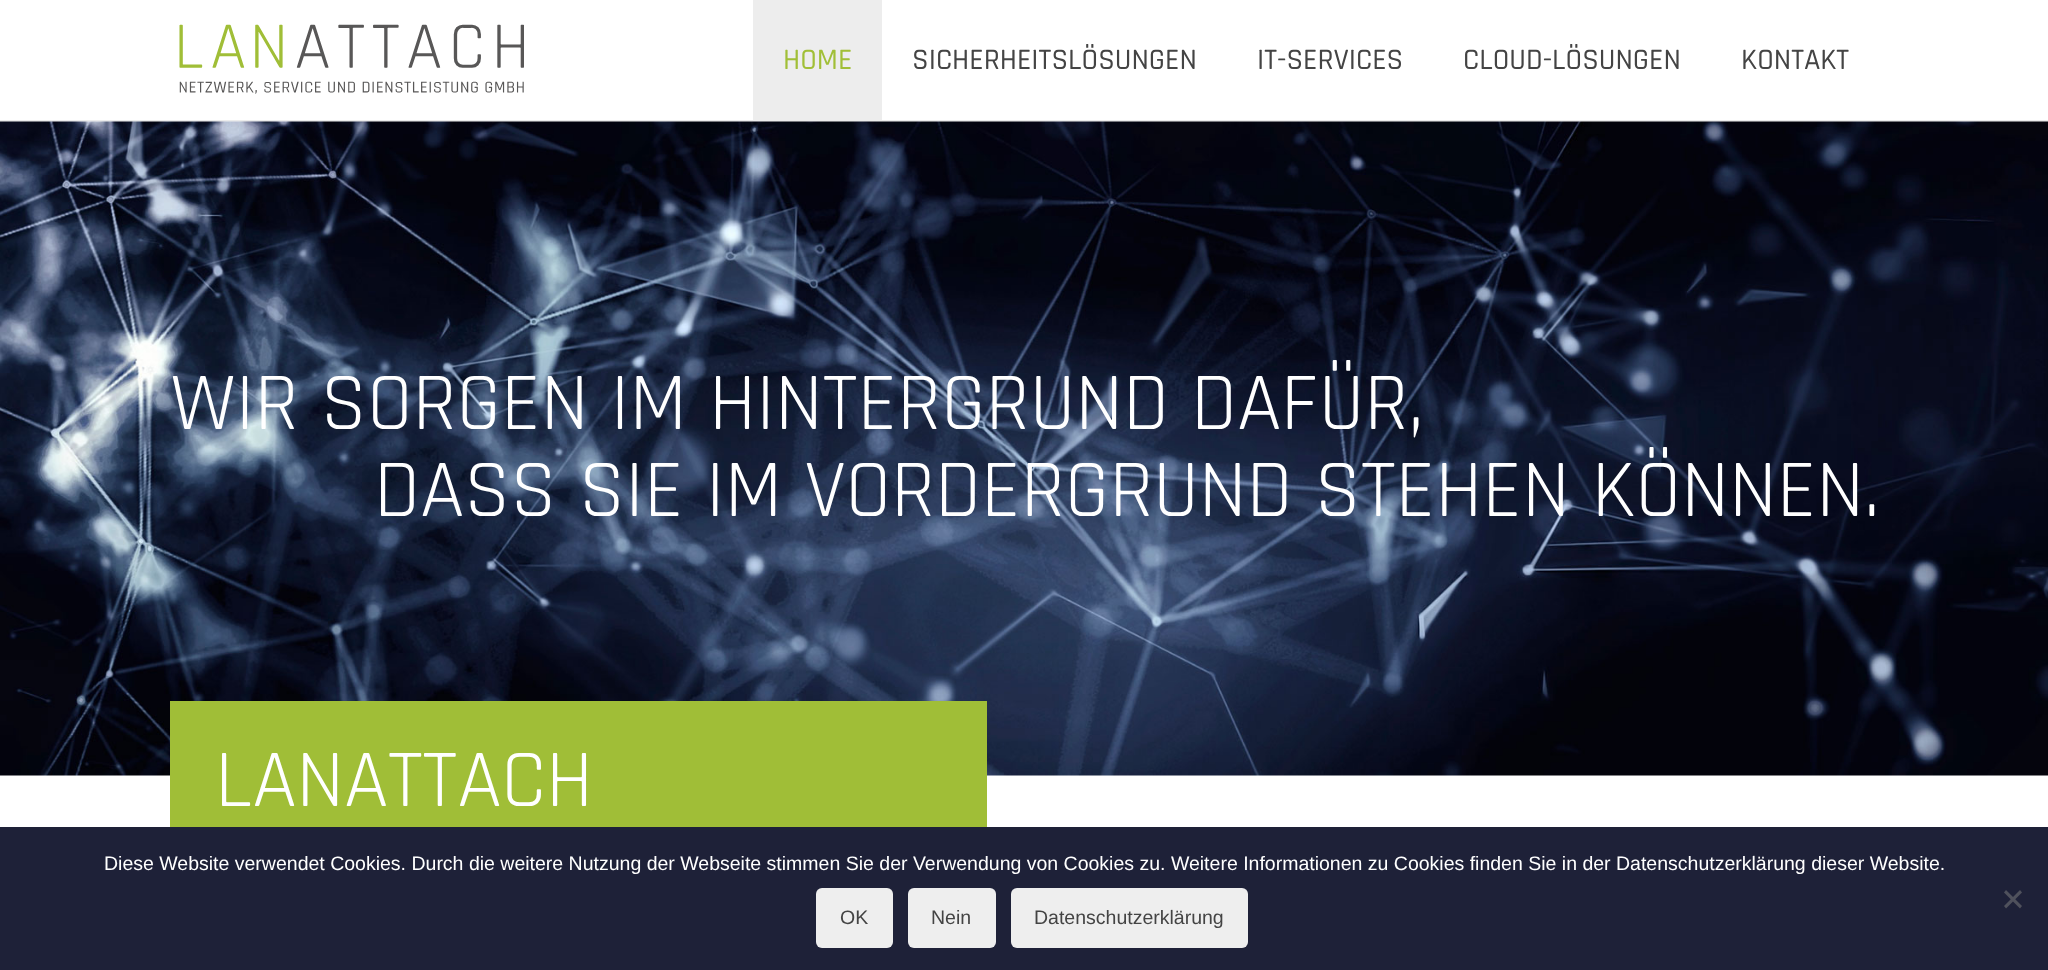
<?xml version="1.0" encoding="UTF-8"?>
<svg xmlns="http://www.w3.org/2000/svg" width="2048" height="970">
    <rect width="100%" height="100%" fill="#FFFFFF"/>
    <rect x="0" y="120" width="2048" height="2" fill="#ECECEC"/>
    <image x="179" y="24" width="345" height="70" href="img_01.png"/>
    <rect x="753" y="0" width="129" height="120" fill="#EDEDED"/>
    <text x="783" y="69" font-family="Rajdhani" font-size="30" font-weight="500" fill="#A1BF37">HOME</text>
    <text x="912" y="69" font-family="Rajdhani" font-size="30" font-weight="500" fill="#444444">SICHERHEITSLÖSUNGEN</text>
    <text x="1257" y="69" font-family="Rajdhani" font-size="30" font-weight="500" fill="#444444">IT-SERVICES</text>
    <text x="1463" y="69" font-family="Rajdhani" font-size="30" font-weight="500" fill="#444444">CLOUD-LÖSUNGEN</text>
    <text x="1741" y="69" font-family="Rajdhani" font-size="30" font-weight="500" fill="#444444">KONTAKT</text>
    <image x="0" y="121" width="2048" height="655" href="img_02.png"/>
    <text x="170" y="429" font-family="Rajdhani" font-size="82.5" fill="#FFFFFF">WIR SORGEN IM HINTERGRUND DAFÜR,</text>
    <text x="374" y="516" font-family="Rajdhani" font-size="82.5" fill="#FFFFFF">DASS SIE IM VORDERGRUND STEHEN KÖNNEN.</text>
    <rect x="170" y="701" width="817" height="126" fill="#A0BE37"/>
    <text x="215" y="806" font-family="Rajdhani" font-size="82.5" fill="#FFFFFF">LANATTACH</text>
    <rect x="0" y="827" width="2048" height="143" fill="#1E2138"/>
    <text x="104" y="870" font-family="Liberation Sans" font-size="19.5" fill="#FFFFFF">Diese Website verwendet Cookies. Durch die weitere Nutzung der Webseite stimmen Sie der Verwendung von Cookies zu. Weitere Informationen zu Cookies finden Sie in der Datenschutzerklärung dieser Website.</text>
    <path d="M 2020 890 L 2022 892.5 L 2006 908.5 L 2004 906 Z" fill="#4F515C"/>
    <path d="M 2004 892.5 L 2006 890 L 2022 906 L 2020 908.5 Z" fill="#4F515C"/>
    <rect x="816" y="888" width="77" height="60" rx="6" fill="#EEEEEE"/>
    <text x="840" y="924" font-family="Liberation Sans" font-size="19.5" fill="#444444">OK</text>
    <rect x="908" y="888" width="88" height="60" rx="6" fill="#EEEEEE"/>
    <text x="931" y="924" font-family="Liberation Sans" font-size="19.5" fill="#444444">Nein</text>
    <rect x="1011" y="888" width="237" height="60" rx="6" fill="#EEEEEE"/>
    <text x="1034" y="924" font-family="Liberation Sans" font-size="19.5" fill="#444444">Datenschutzerklärung</text>
</svg>
